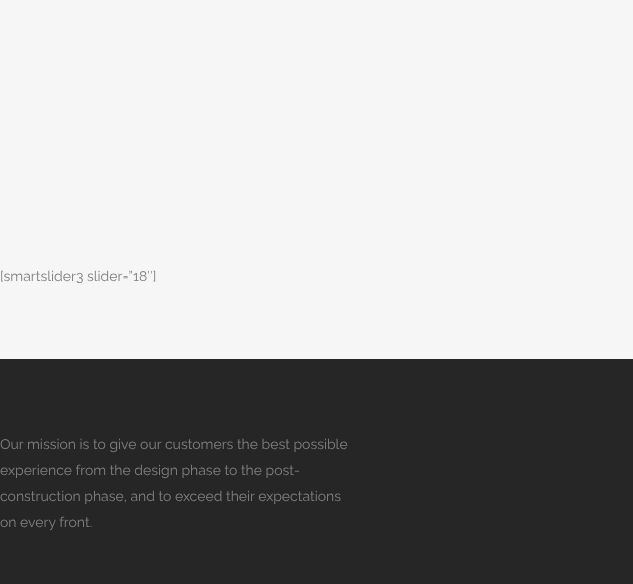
<?xml version="1.0" encoding="UTF-8"?>
<svg xmlns="http://www.w3.org/2000/svg" width="633" height="584">
    <rect width="100%" height="100%" fill="#F6F6F6"/>
    <text x="0" y="281" font-family="Raleway" font-size="14" fill="#818181">[smartslider3 slider=”18″]</text>
    <rect x="0" y="359" width="633" height="225" fill="#262626"/>
    <text font-family="Raleway" font-size="14" fill="#818181">
        <tspan x="0" y="449">Our mission is to give our customers the best possible</tspan>
        <tspan x="0" y="475">experience from the design phase to the post-</tspan>
        <tspan x="0" y="501">construction phase, and to exceed their expectations</tspan>
        <tspan x="0" y="527">on every front.</tspan>
    </text>
</svg>
